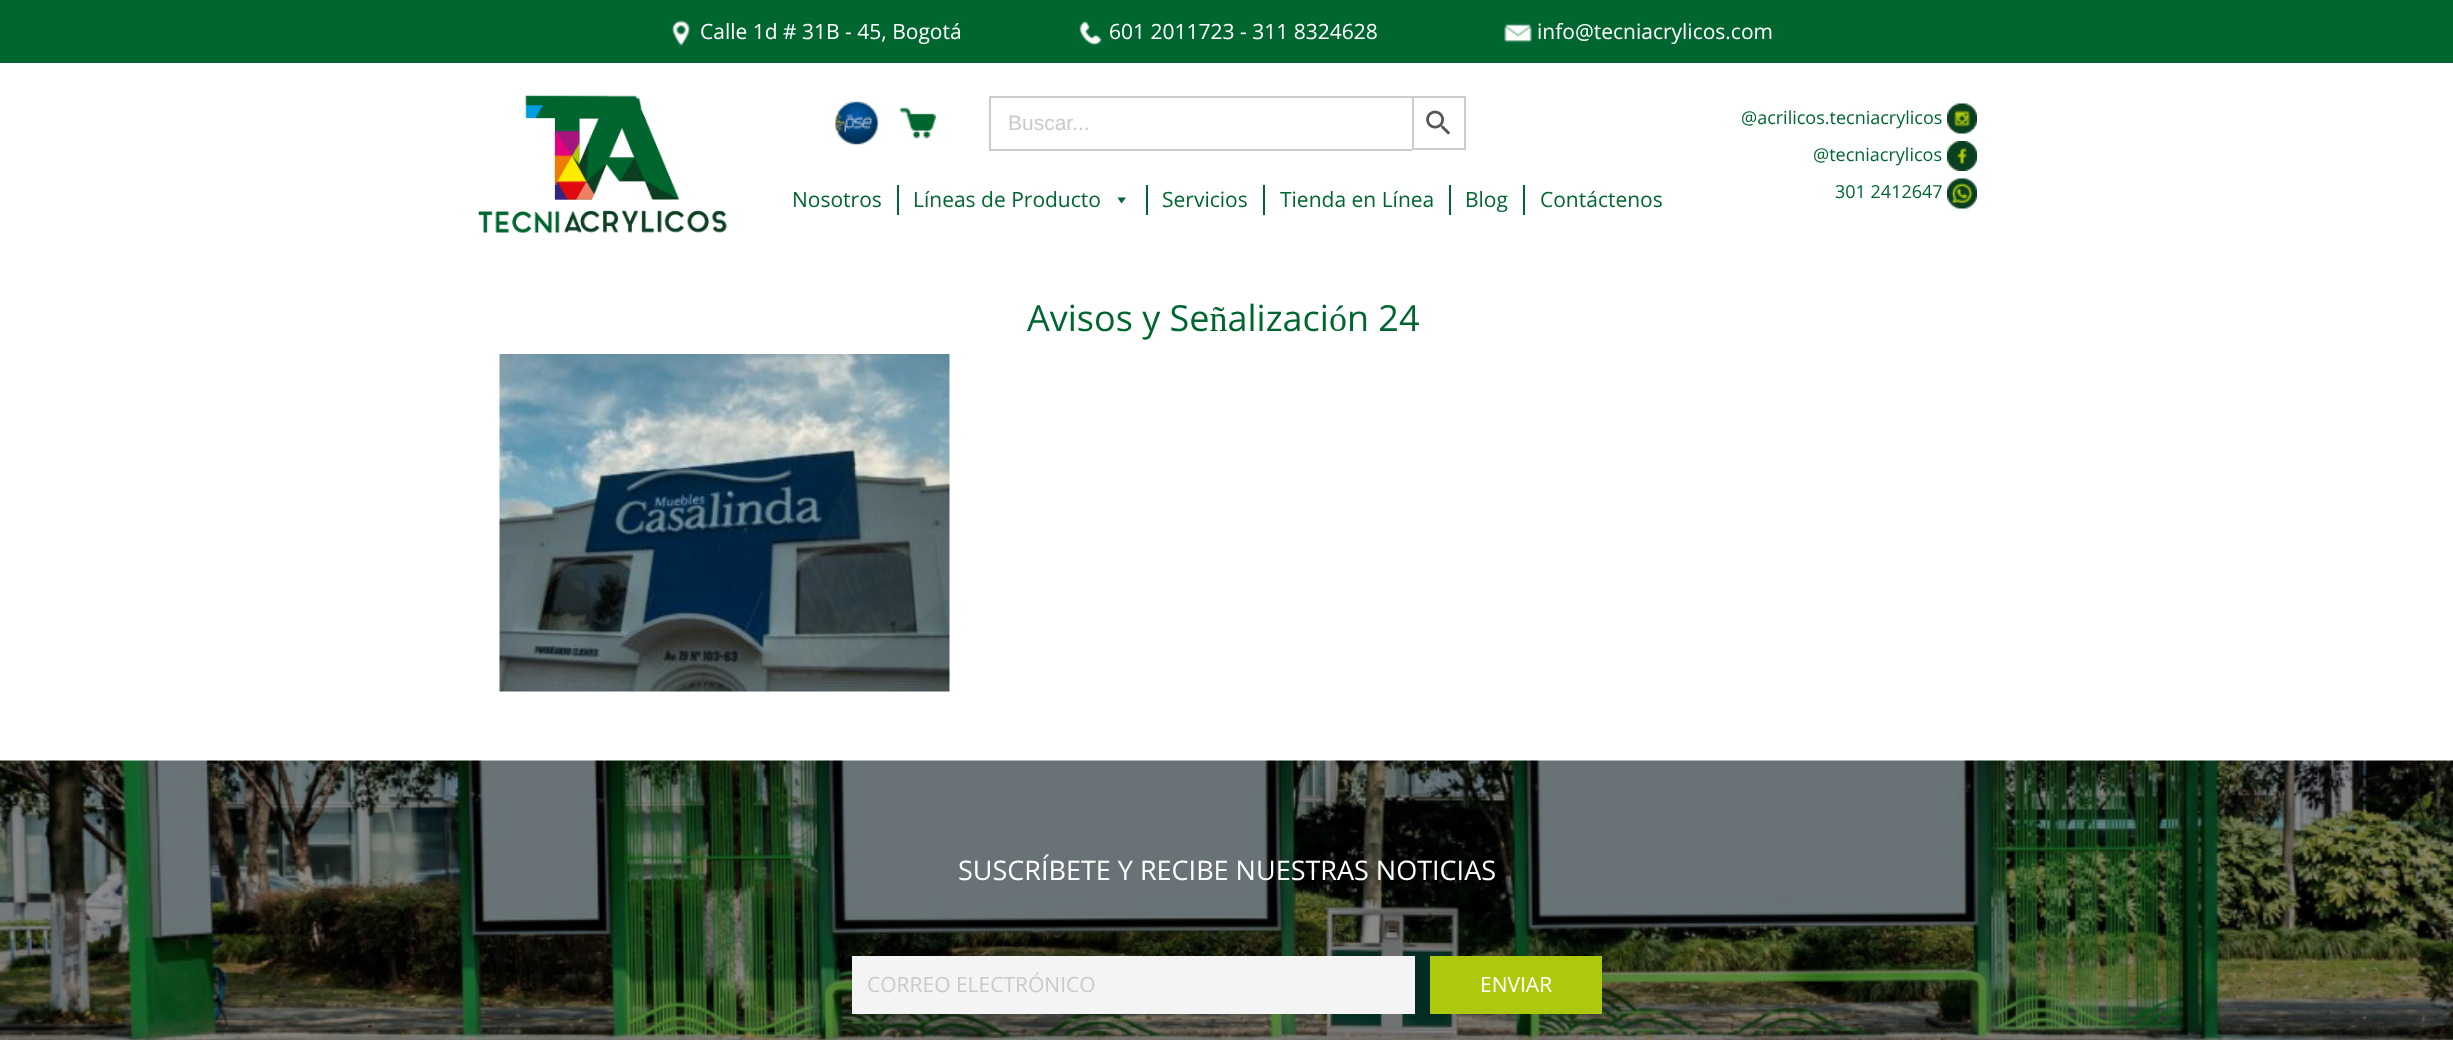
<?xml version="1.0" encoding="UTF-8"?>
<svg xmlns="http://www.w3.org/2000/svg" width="2453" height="1040">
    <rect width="100%" height="100%" fill="#FFFFFF"/>
    <rect x="0" y="0" width="2453" height="63" fill="#00662F"/>
    <image x="671" y="20" width="20" height="26" href="img_01.png"/>
    <text x="700" y="39" font-family="Open Sans" font-size="21" fill="#FFFFFF">Calle 1d # 31B - 45, Bogotá</text>
    <image x="1079" y="21" width="23" height="25" href="img_02.png"/>
    <text x="1109" y="39" font-family="Open Sans" font-size="21" fill="#FFFFFF">601 2011723 - 311 8324628</text>
    <image x="1504" y="23" width="28" height="20" href="img_03.png"/>
    <text x="1537" y="39" font-family="Open Sans" font-size="21" fill="#FFFFFF">info@tecniacrylicos.com</text>
    <image x="478" y="95" width="250" height="138" href="img_04.png"/>
    <image x="835" y="100" width="44" height="46" href="img_05.png"/>
    <image x="900" y="107" width="36" height="32" href="img_06.png"/>
    <rect x="989" y="96" width="423" height="2" fill="#CCCCCC"/>
    <rect x="989" y="149" width="423" height="2" fill="#CCCCCC"/>
    <rect x="989" y="96" width="2" height="54" fill="#CCCCCC"/>
    <text x="1008" y="130" font-family="Liberation Sans" font-size="21" fill="#CACACA">Buscar...</text>
    <rect x="1413" y="97" width="52" height="52" fill="none" stroke="#CCCCCC" stroke-width="2"/>
    <image x="1426" y="110" width="25" height="25" href="img_07.png"/>
    <text x="792" y="207" font-family="Open Sans" font-size="21" fill="#00662F">Nosotros</text>
    <rect x="897" y="185" width="2" height="30" fill="#00662F"/>
    <text x="913" y="207" font-family="Open Sans" font-size="21" fill="#00662F">Líneas de Producto</text>
    <path d="M 1126 197.5 L 1121.5 203.5 L 1117.5 197.5 Z" fill="#00662F"/>
    <rect x="1146" y="185" width="2" height="30" fill="#00662F"/>
    <text x="1162" y="207" font-family="Open Sans" font-size="21" fill="#00662F">Servicios</text>
    <rect x="1263" y="185" width="2" height="30" fill="#00662F"/>
    <text x="1280" y="207" font-family="Open Sans" font-size="21" fill="#00662F">Tienda en Línea</text>
    <rect x="1449" y="185" width="2" height="30" fill="#00662F"/>
    <text x="1465" y="207" font-family="Open Sans" font-size="21" fill="#00662F">Blog</text>
    <rect x="1523" y="185" width="2" height="30" fill="#00662F"/>
    <text x="1540" y="207" font-family="Open Sans" font-size="21" fill="#00662F">Contáctenos</text>
    <text x="1741" y="124" font-family="Open Sans" font-size="18" fill="#00662F">@acrilicos.tecniacrylicos</text>
    <image x="1947" y="103" width="30" height="31" href="img_08.png"/>
    <text x="1813" y="161" font-family="Open Sans" font-size="18" fill="#00662F">@tecniacrylicos</text>
    <image x="1947" y="141" width="30" height="30" href="img_09.png"/>
    <text x="1835" y="198" font-family="Open Sans" font-size="18" fill="#00662F">301 2412647</text>
    <image x="1947" y="178" width="30" height="31" href="img_10.png"/>
    <text x="1027" y="331" font-family="Open Sans" font-size="36" fill="#00662F">Avisos y Señalización 24</text>
    <image x="499" y="354" width="451" height="338" href="img_11.png"/>
    <image x="0" y="760" width="2453" height="280" href="img_12.png"/>
    <text x="958" y="880" font-family="Open Sans" font-size="27" fill="#FFFFFF">SUSCRÍBETE Y RECIBE NUESTRAS NOTICIAS</text>
    <rect x="852" y="956" width="563" height="58" fill="#F4F4F4"/>
    <text x="867" y="992" font-family="Open Sans" font-size="21" fill="#CACACA">CORREO ELECTRÓNICO</text>
    <rect x="1430" y="956" width="172" height="58" fill="#AEC90B"/>
    <text x="1480" y="992" font-family="Open Sans" font-size="21" fill="#FFFFFF">ENVIAR</text>
</svg>
